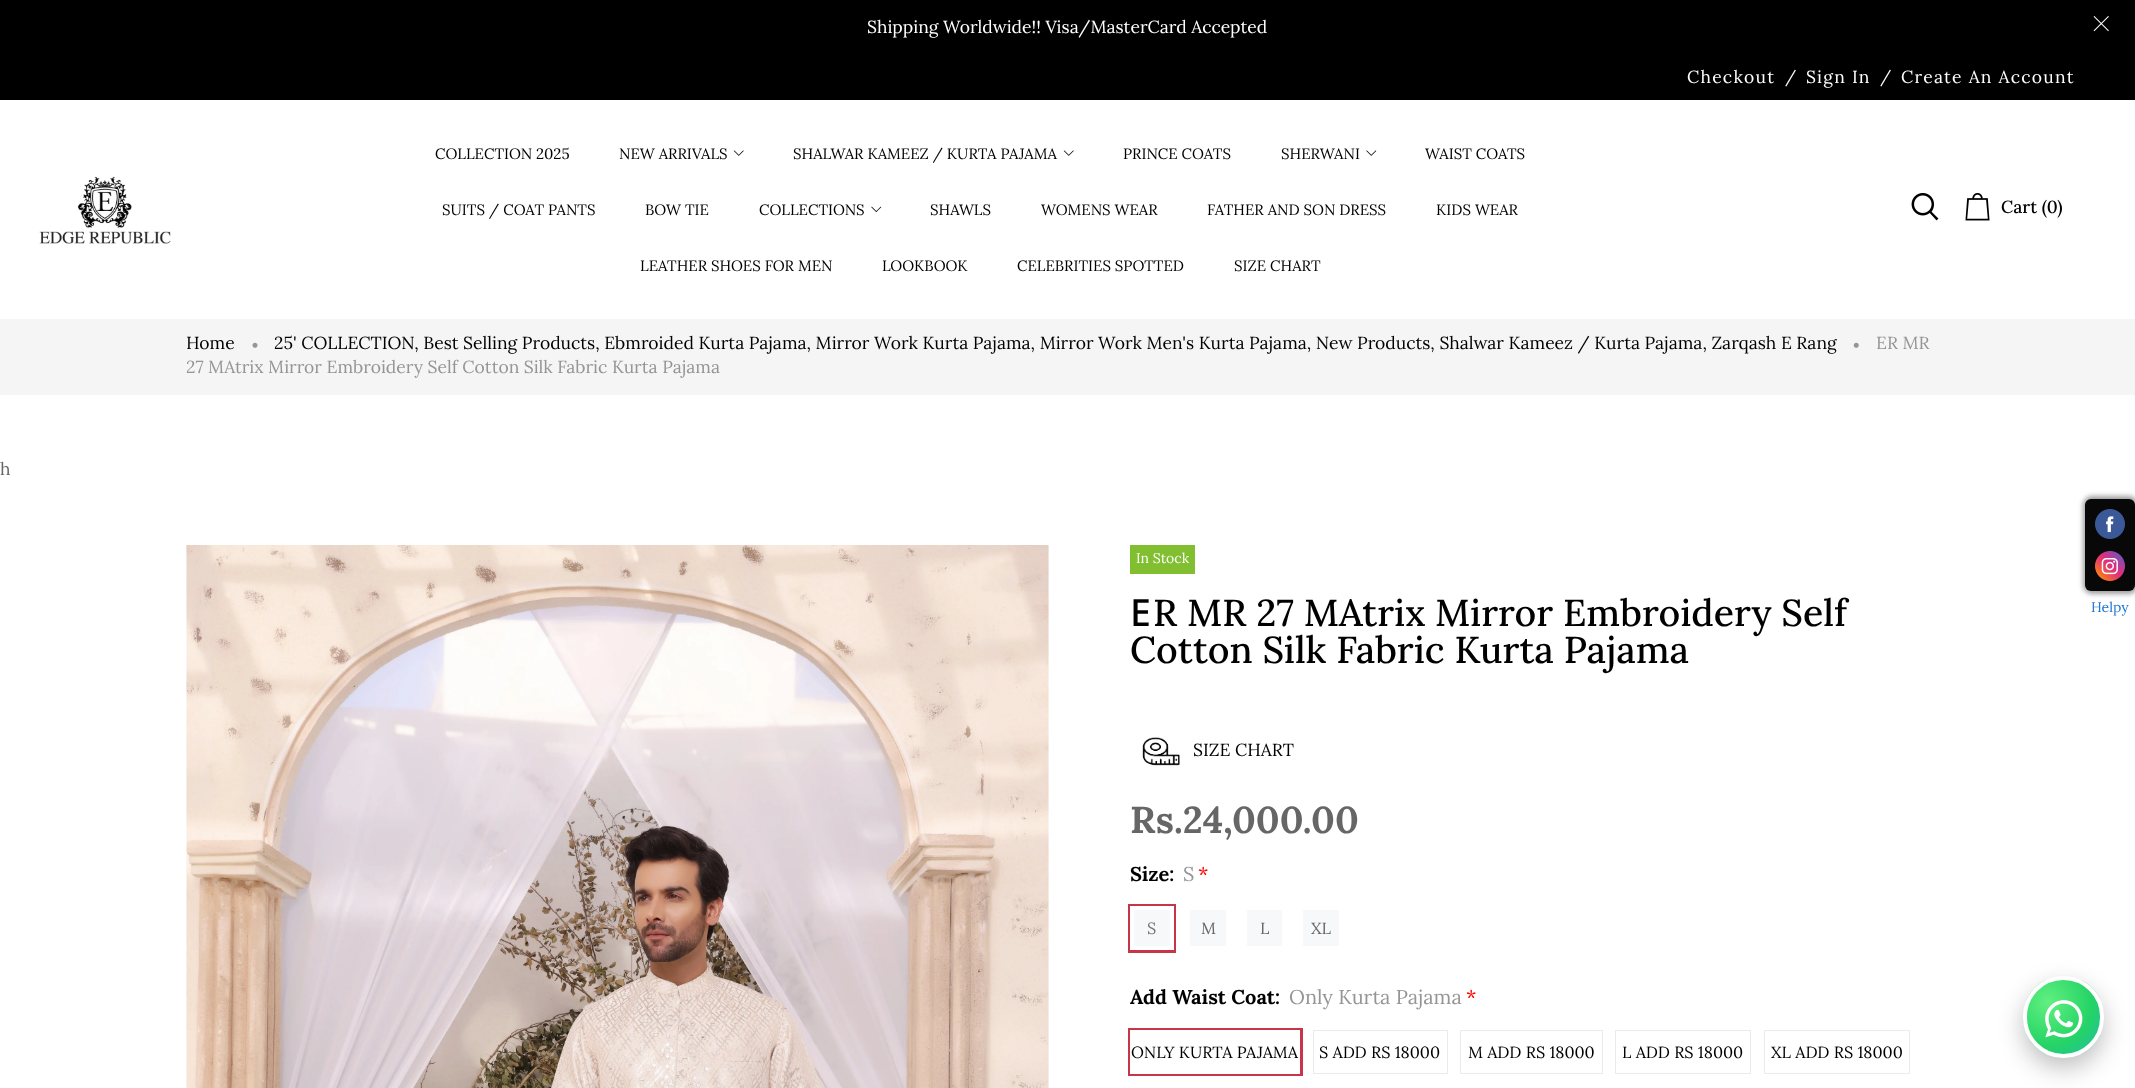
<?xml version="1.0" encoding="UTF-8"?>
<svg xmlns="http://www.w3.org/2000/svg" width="2135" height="1088">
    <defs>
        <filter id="blur1" x="-50%" y="-200%" width="200%" height="500%"><feGaussianBlur stdDeviation="0.5"/></filter>
        <filter id="blur2" x="-50%" y="-200%" width="200%" height="500%"><feGaussianBlur stdDeviation="2.5"/></filter>
        <filter id="blur3" x="-50%" y="-200%" width="200%" height="500%"><feGaussianBlur stdDeviation="12.5"/></filter>
        <clipPath id="clip1"><rect x="2023" y="976" width="81" height="82" rx="40.5"/></clipPath>
        <radialGradient id="g1" gradientUnits="userSpaceOnUse" cx="2048" cy="1002" r="73"><stop offset="0" stop-color="#60F080"/><stop offset="0.6" stop-color="#25D366"/><stop offset="1" stop-color="#1EBEA5"/></radialGradient>
    </defs>
    <rect width="100%" height="100%" fill="#FFFFFF"/>
    <rect x="0" y="0" width="2135" height="100" fill="#000000"/>
    <text x="867" y="33" font-family="Lora" font-size="17.5" fill="#FFFFFF">Shipping Worldwide!! Visa/MasterCard Accepted</text>
    <image x="2093" y="16" width="16" height="16" href="img_01.png"/>
    <text x="1687" y="83" font-family="Lora" font-size="17.5" letter-spacing="1.25" fill="#FFFFFF">Checkout</text>
    <text x="1785" y="82" font-family="Lora" font-size="16.25" letter-spacing="1.25" fill="#FFFFFF">/</text>
    <text x="1806" y="83" font-family="Lora" font-size="17.5" letter-spacing="1.25" fill="#FFFFFF">Sign In</text>
    <text x="1880" y="82" font-family="Lora" font-size="16.25" letter-spacing="1.25" fill="#FFFFFF">/</text>
    <text x="1901" y="83" font-family="Lora" font-size="17.5" letter-spacing="1.25" fill="#FFFFFF">Create An Account</text>
    <image x="39" y="176" width="132" height="68" href="img_02.png"/>
    <text x="435" y="159" font-family="Lora" font-size="15" fill="#000000">COLLECTION 2025</text>
    <text x="619" y="159" font-family="Lora" font-size="15" fill="#000000">NEW ARRIVALS</text>
    <image x="733" y="150" width="11" height="6" href="img_03.png"/>
    <text x="793" y="159" font-family="Lora" font-size="15" fill="#000000">SHALWAR KAMEEZ / KURTA PAJAMA</text>
    <image x="1063" y="150" width="11" height="6" href="img_03.png"/>
    <text x="1123" y="159" font-family="Lora" font-size="15" fill="#000000">PRINCE COATS</text>
    <text x="1281" y="159" font-family="Lora" font-size="15" fill="#000000">SHERWANI</text>
    <image x="1366" y="150" width="11" height="6" href="img_04.png"/>
    <text x="1425" y="159" font-family="Lora" font-size="15" fill="#000000">WAIST COATS</text>
    <text x="442" y="215" font-family="Lora" font-size="15" fill="#000000">SUITS / COAT PANTS</text>
    <text x="645" y="215" font-family="Lora" font-size="15" fill="#000000">BOW TIE</text>
    <text x="759" y="215" font-family="Lora" font-size="15" fill="#000000">COLLECTIONS</text>
    <image x="871" y="206" width="11" height="6" href="img_05.png"/>
    <text x="930" y="215" font-family="Lora" font-size="15" fill="#000000">SHAWLS</text>
    <text x="1041" y="215" font-family="Lora" font-size="15" fill="#000000">WOMENS WEAR</text>
    <text x="1207" y="215" font-family="Lora" font-size="15" fill="#000000">FATHER AND SON DRESS</text>
    <text x="1436" y="215" font-family="Lora" font-size="15" fill="#000000">KIDS WEAR</text>
    <text x="640" y="271" font-family="Lora" font-size="15" fill="#000000">LEATHER SHOES FOR MEN</text>
    <text x="882" y="271" font-family="Lora" font-size="15" fill="#000000">LOOKBOOK</text>
    <text x="1017" y="271" font-family="Lora" font-size="15" fill="#000000">CELEBRITIES SPOTTED</text>
    <text x="1234" y="271" font-family="Lora" font-size="15" fill="#000000">SIZE CHART</text>
    <image x="1911" y="193" width="28" height="28" href="img_06.png"/>
    <image x="1965" y="193" width="25" height="28" href="img_07.png"/>
    <text x="2001" y="213" font-family="Lora" font-size="17.5" font-weight="500" fill="#000000">Cart (0)</text>
    <rect x="0" y="319" width="2135" height="76" fill="#F5F5F5"/>
    <text x="186" y="349" font-family="Lora" font-size="17.5" fill="#000000">Home</text>
    <image x="252" y="342" width="6" height="6" href="img_08.png"/>
    <text x="274" y="349" font-family="Lora" font-size="17.5" fill="#000000">25' COLLECTION, Best Selling Products, Ebmroided Kurta Pajama, Mirror Work Kurta Pajama, Mirror Work Men's Kurta Pajama, New Products, Shalwar Kameez / Kurta Pajama, Zarqash E Rang</text>
    <image x="1853" y="342" width="6" height="6" href="img_09.png"/>
    <text x="1876" y="349" font-family="Lora" font-size="17.5" fill="#959595">ER MR</text>
    <text x="186" y="373" font-family="Lora" font-size="17.5" fill="#959595">27 MAtrix Mirror Embroidery Self Cotton Silk Fabric Kurta Pajama</text>
    <text x="0" y="475" font-family="Lora" font-size="17.5" fill="#666666">h</text>
    <image x="186" y="545" width="863" height="543" href="img_10.png"/>
    <rect x="1130" y="545" width="65" height="29" fill="#81BF30"/>
    <text x="1136" y="563" font-family="Lora" font-size="14" fill="#FFFFFF">In Stock</text>
    <text x="1130" y="626" font-family="Noto Sans" font-size="37.5" font-weight="500" fill="#000000">E</text>
    <text x="1153" y="626" font-family="Lora" font-size="37.5" font-weight="500" fill="#000000">R MR 27 MAtrix Mirror Embroidery Self</text>
    <text x="1130" y="663" font-family="Lora" font-size="37.5" font-weight="500" fill="#000000">Cotton Silk Fabric Kurta Pajama</text>
    <image x="1142" y="737" width="38" height="29" href="img_11.png"/>
    <text x="1193" y="756" font-family="Lora" font-size="17.5" fill="#000000">SIZE CHART</text>
    <text x="1130" y="833" font-family="Lora" font-size="37.5" font-weight="700" fill="#666666">Rs.24,000.00</text>
    <text x="1130" y="881" font-family="Lora" font-size="20" font-weight="700" fill="#000000">Size:</text>
    <text x="1183" y="881" font-family="Lora" font-size="20" fill="#959595">S</text>
    <text x="1198" y="881" font-family="Lora" font-size="20" fill="#FF0000">*</text>
    <rect x="1129.5" y="905.5" width="45" height="46" fill="none" stroke="#C83548" stroke-width="3"/>
    <rect x="1132" y="908" width="40" height="40" fill="#F7F8FA" stroke="#FFFFFF" stroke-width="4"/>
    <text x="1147" y="934" font-family="Lora" font-size="16.25" fill="#777777">S</text>
    <rect x="1186" y="906" width="44" height="44" fill="#A0A0A0" filter="url(#blur1)"/>
    <rect x="1188" y="908" width="40" height="40" fill="#F7F8FA" stroke="#FFFFFF" stroke-width="4"/>
    <text x="1201" y="934" font-family="Lora" font-size="16.25" fill="#666666">M</text>
    <rect x="1243" y="906" width="43" height="44" fill="#A0A0A0" filter="url(#blur1)"/>
    <rect x="1245" y="908" width="39" height="40" fill="#F7F8FA" stroke="#FFFFFF" stroke-width="4"/>
    <text x="1260" y="934" font-family="Lora" font-size="16.25" fill="#666666">L</text>
    <rect x="1299" y="906" width="44" height="44" fill="#A0A0A0" filter="url(#blur1)"/>
    <rect x="1301" y="908" width="40" height="40" fill="#F7F8FA" stroke="#FFFFFF" stroke-width="4"/>
    <text x="1311" y="934" font-family="Lora" font-size="16.25" fill="#666666">XL</text>
    <text x="1130" y="1004" font-family="Lora" font-size="20" font-weight="700" fill="#000000">Add Waist Coat:</text>
    <text x="1289" y="1004" font-family="Lora" font-size="20" fill="#959595">Only Kurta Pajama</text>
    <text x="1466" y="1004" font-family="Lora" font-size="20" fill="#FF0000">*</text>
    <rect x="1129.5" y="1029.5" width="172" height="45" fill="none" stroke="#C83548" stroke-width="3"/>
    <rect x="1130" y="1030" width="170" height="44" fill="#FFFFFF"/>
    <text x="1131" y="1058" font-family="Lora" font-size="16.25" fill="#000000">ONLY KURTA PAJAMA</text>
    <rect x="1313.5" y="1030.5" width="134" height="43" fill="none" stroke="#EBEBEB"/>
    <text x="1319" y="1058" font-family="Lora" font-size="16.25" fill="#000000">S ADD RS 18000</text>
    <rect x="1460.5" y="1030.5" width="142" height="43" fill="none" stroke="#EBEBEB"/>
    <text x="1468" y="1058" font-family="Lora" font-size="16.25" fill="#000000">M ADD RS 18000</text>
    <rect x="1615.5" y="1030.5" width="135" height="43" fill="none" stroke="#EBEBEB"/>
    <text x="1622" y="1058" font-family="Lora" font-size="16.25" fill="#000000">L ADD RS 18000</text>
    <rect x="1764.5" y="1030.5" width="145" height="43" fill="none" stroke="#EBEBEB"/>
    <text x="1771" y="1058" font-family="Lora" font-size="16.25" fill="#000000">XL ADD RS 18000</text>
    <rect x="2083" y="496" width="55" height="98" rx="9" fill="#9E9E9E" filter="url(#blur2)"/>
    <rect x="2085" y="499" width="50" height="92" rx="6" fill="#080808"/>
    <image x="2095" y="509" width="30" height="30" href="img_12.png"/>
    <image x="2095" y="551" width="30" height="30" href="img_13.png"/>
    <text x="2091" y="612" font-family="Lora" font-size="14" fill="#2076D2">Helpy</text>
    <rect x="2023" y="986" width="81" height="82" rx="40.5" fill="#000000" fill-opacity="0.25" filter="url(#blur3)"/>
    <g clip-path="url(#clip1)">
        <rect x="2026" y="980" width="74" height="74" fill="url(#g1)"/>
    </g>
    <rect x="2025" y="978" width="77" height="78" rx="38.5" fill="none" stroke="#FFFFFF" stroke-width="4"/>
    <image x="2045" y="1000" width="38" height="38" href="img_14.png"/>
</svg>
